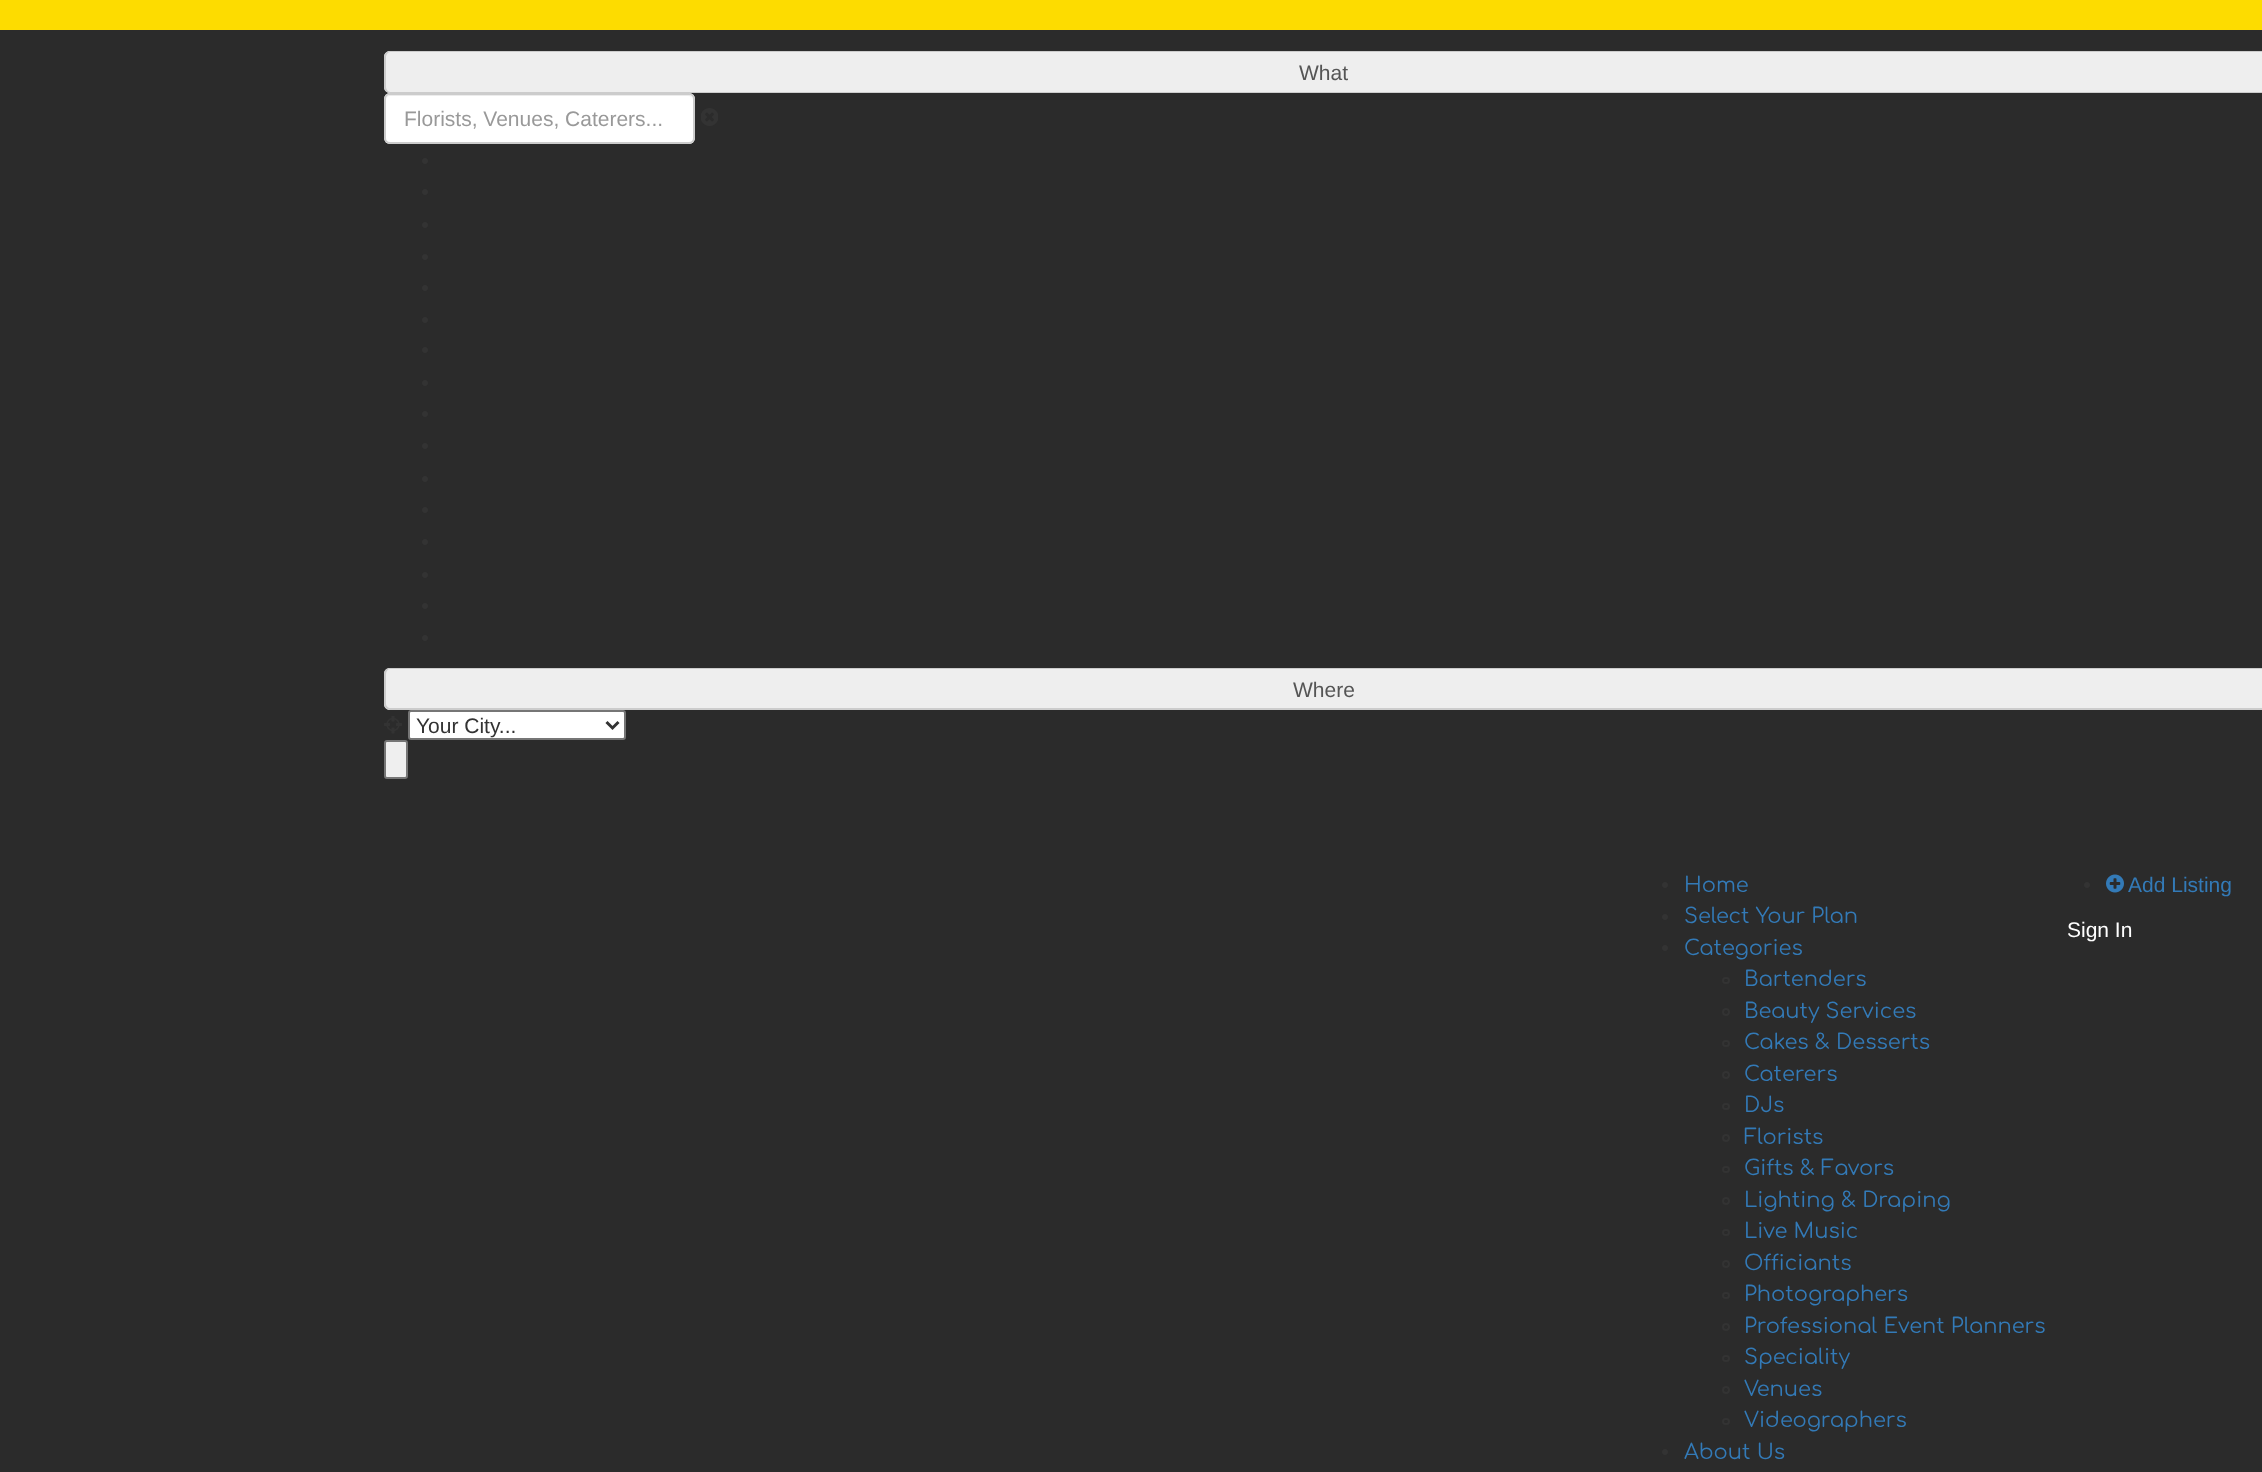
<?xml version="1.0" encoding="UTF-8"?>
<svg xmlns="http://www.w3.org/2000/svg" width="2262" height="1472">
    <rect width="100%" height="100%" fill="#FDDC00"/>
    <rect x="0" y="30" width="2262" height="1442" fill="#2B2B2B"/>
    <path d="M 390 51 H 2262 V 93 H 390 C 386.5 93 384 90.5 384 87 V 57 C 384 53.5 386.5 51 390 51 Z" fill="#EEEEEE"/>
    <path d="M 390 51 H 2262 V 93 H 390 C 387 93 384 90 384 87 V 57 C 384 54 387 51 390 51 Z M 390 52 H 2262 V 92 H 390 C 388 92 386 89 386 87 V 57 C 386 55 388 52 390 52 Z" fill="#CCCCCC" fill-rule="evenodd"/>
    <text x="1299" y="80" font-family="Liberation Sans" font-size="21" fill="#555555">What</text>
    <rect x="384" y="93" width="311" height="51" rx="6" fill="#FFFFFF"/>
    <path d="M 390 96 H 688 C 691 96 693 98 693 100 C 693 97 691 95 688 95 H 391 C 388 95 386 97 386 100 C 386 98 388 96 390 96 Z" fill="#ECECEC"/>
    <rect x="385" y="94" width="309" height="49" rx="5" fill="none" stroke="#CCCCCC" stroke-width="2"/>
    <text x="404" y="126" font-family="Liberation Sans" font-size="21" fill="#999999">Florists, Venues, Caterers...</text>
    <image x="701" y="108" width="17" height="18" href="img_01.png"/>
    <circle cx="425" cy="161" r="3" fill="#333333"/>
    <circle cx="425" cy="192" r="3" fill="#333333"/>
    <circle cx="425" cy="225" r="3" fill="#333333"/>
    <circle cx="425" cy="257" r="3" fill="#333333"/>
    <circle cx="425" cy="288" r="3" fill="#333333"/>
    <circle cx="425" cy="320" r="3" fill="#333333"/>
    <circle cx="425" cy="350" r="3" fill="#333333"/>
    <circle cx="425" cy="383" r="3" fill="#333333"/>
    <circle cx="425" cy="414" r="3" fill="#333333"/>
    <circle cx="425" cy="446" r="3" fill="#333333"/>
    <circle cx="425" cy="479" r="3" fill="#333333"/>
    <circle cx="425" cy="510" r="3" fill="#333333"/>
    <circle cx="425" cy="542" r="3" fill="#333333"/>
    <circle cx="425" cy="575" r="3" fill="#333333"/>
    <circle cx="425" cy="606" r="3" fill="#333333"/>
    <circle cx="425" cy="638" r="3" fill="#333333"/>
    <path d="M 390 668 H 2262 V 710 H 390 C 386.5 710 384 707.5 384 704 V 674 C 384 670.5 386.5 668 390 668 Z" fill="#EEEEEE"/>
    <path d="M 390 668 H 2262 V 710 H 390 C 387 710 384 707 384 704 V 674 C 384 670 387 668 390 668 Z M 390 669 H 2262 V 708 H 390 C 388 708 386 706 386 704 V 674 C 386 671 388 669 390 669 Z" fill="#CCCCCC" fill-rule="evenodd"/>
    <text x="1293" y="697" font-family="Liberation Sans" font-size="21" fill="#555555">Where</text>
    <image x="384" y="716" width="18" height="18" href="img_02.png"/>
    <rect x="409" y="711" width="216" height="28" rx="2" fill="#FFFFFF" stroke="#767676" stroke-width="2"/>
    <path d="M 606.5 722 L 612.5 728 L 618.5 722" fill="none" stroke="#333333" stroke-width="3"/>
    <text x="416" y="733" font-family="Liberation Sans" font-size="21" fill="#333333">Your City...</text>
    <rect x="385" y="741" width="22" height="37" rx="2" fill="#EFEFEF" stroke="#767676" stroke-width="2"/>
    <circle cx="1665" cy="885" r="3" fill="#333333"/>
    <text x="1684" y="892" font-family="Comfortaa" font-size="21" fill="#337AB7">Home</text>
    <circle cx="1665" cy="917" r="3" fill="#333333"/>
    <text x="1684" y="923" font-family="Comfortaa" font-size="21" fill="#337AB7">Select Your Plan</text>
    <circle cx="1665" cy="948" r="3" fill="#333333"/>
    <text x="1684" y="955" font-family="Comfortaa" font-size="21" fill="#337AB7">Categories</text>
    <rect x="1723" y="978" width="6" height="5" rx="2.5" fill="none" stroke="#333333" stroke-width="2"/>
    <text x="1744" y="986" font-family="Comfortaa" font-size="21" fill="#337AB7">Bartenders</text>
    <circle cx="1726" cy="1012" r="3" fill="none" stroke="#333333" stroke-width="2"/>
    <text x="1744" y="1018" font-family="Comfortaa" font-size="21" fill="#337AB7">Beauty Services</text>
    <rect x="1723" y="1041" width="6" height="5" rx="2.5" fill="none" stroke="#333333" stroke-width="2"/>
    <text x="1744" y="1049" font-family="Comfortaa" font-size="21" fill="#337AB7">Cakes &amp; Desserts</text>
    <circle cx="1726" cy="1075" r="3" fill="none" stroke="#333333" stroke-width="2"/>
    <text x="1744" y="1081" font-family="Comfortaa" font-size="21" fill="#337AB7">Caterers</text>
    <rect x="1723" y="1104" width="6" height="5" rx="2.5" fill="none" stroke="#333333" stroke-width="2"/>
    <text x="1744" y="1112" font-family="Comfortaa" font-size="21" fill="#337AB7">DJs</text>
    <circle cx="1726" cy="1138" r="3" fill="none" stroke="#333333" stroke-width="2"/>
    <text x="1744" y="1144" font-family="Comfortaa" font-size="21" fill="#337AB7">Florists</text>
    <rect x="1723" y="1167" width="6" height="5" rx="2.5" fill="none" stroke="#333333" stroke-width="2"/>
    <text x="1744" y="1175" font-family="Comfortaa" font-size="21" fill="#337AB7">Gifts &amp; Favors</text>
    <circle cx="1726" cy="1201" r="3" fill="none" stroke="#333333" stroke-width="2"/>
    <text x="1744" y="1207" font-family="Comfortaa" font-size="21" fill="#337AB7">Lighting &amp; Draping</text>
    <rect x="1723" y="1230" width="6" height="5" rx="2.5" fill="none" stroke="#333333" stroke-width="2"/>
    <text x="1744" y="1238" font-family="Comfortaa" font-size="21" fill="#337AB7">Live Music</text>
    <circle cx="1726" cy="1264" r="3" fill="none" stroke="#333333" stroke-width="2"/>
    <text x="1744" y="1270" font-family="Comfortaa" font-size="21" fill="#337AB7">Officiants</text>
    <rect x="1723" y="1293" width="6" height="5" rx="2.5" fill="none" stroke="#333333" stroke-width="2"/>
    <text x="1744" y="1301" font-family="Comfortaa" font-size="21" fill="#337AB7">Photographers</text>
    <circle cx="1726" cy="1327" r="3" fill="none" stroke="#333333" stroke-width="2"/>
    <text x="1744" y="1333" font-family="Comfortaa" font-size="21" fill="#337AB7">Professional Event Planners</text>
    <rect x="1723" y="1356" width="6" height="5" rx="2.5" fill="none" stroke="#333333" stroke-width="2"/>
    <text x="1744" y="1364" font-family="Comfortaa" font-size="21" fill="#337AB7">Speciality</text>
    <circle cx="1726" cy="1390" r="3" fill="none" stroke="#333333" stroke-width="2"/>
    <text x="1744" y="1396" font-family="Comfortaa" font-size="21" fill="#337AB7">Venues</text>
    <rect x="1723" y="1419" width="6" height="5" rx="2.5" fill="none" stroke="#333333" stroke-width="2"/>
    <text x="1744" y="1427" font-family="Comfortaa" font-size="21" fill="#337AB7">Videographers</text>
    <circle cx="1665" cy="1452" r="3" fill="#333333"/>
    <text x="1684" y="1459" font-family="Comfortaa" font-size="21" fill="#337AB7">About Us</text>
    <circle cx="2087" cy="885" r="3" fill="#333333"/>
    <image x="2106" y="874" width="18" height="19" href="img_03.png"/>
    <text x="2128" y="892" font-family="Liberation Sans" font-size="21" fill="#337AB7">Add Listing</text>
    <text x="2067" y="937" font-family="Liberation Sans" font-size="21" fill="#FFFFFF">Sign In</text>
</svg>
